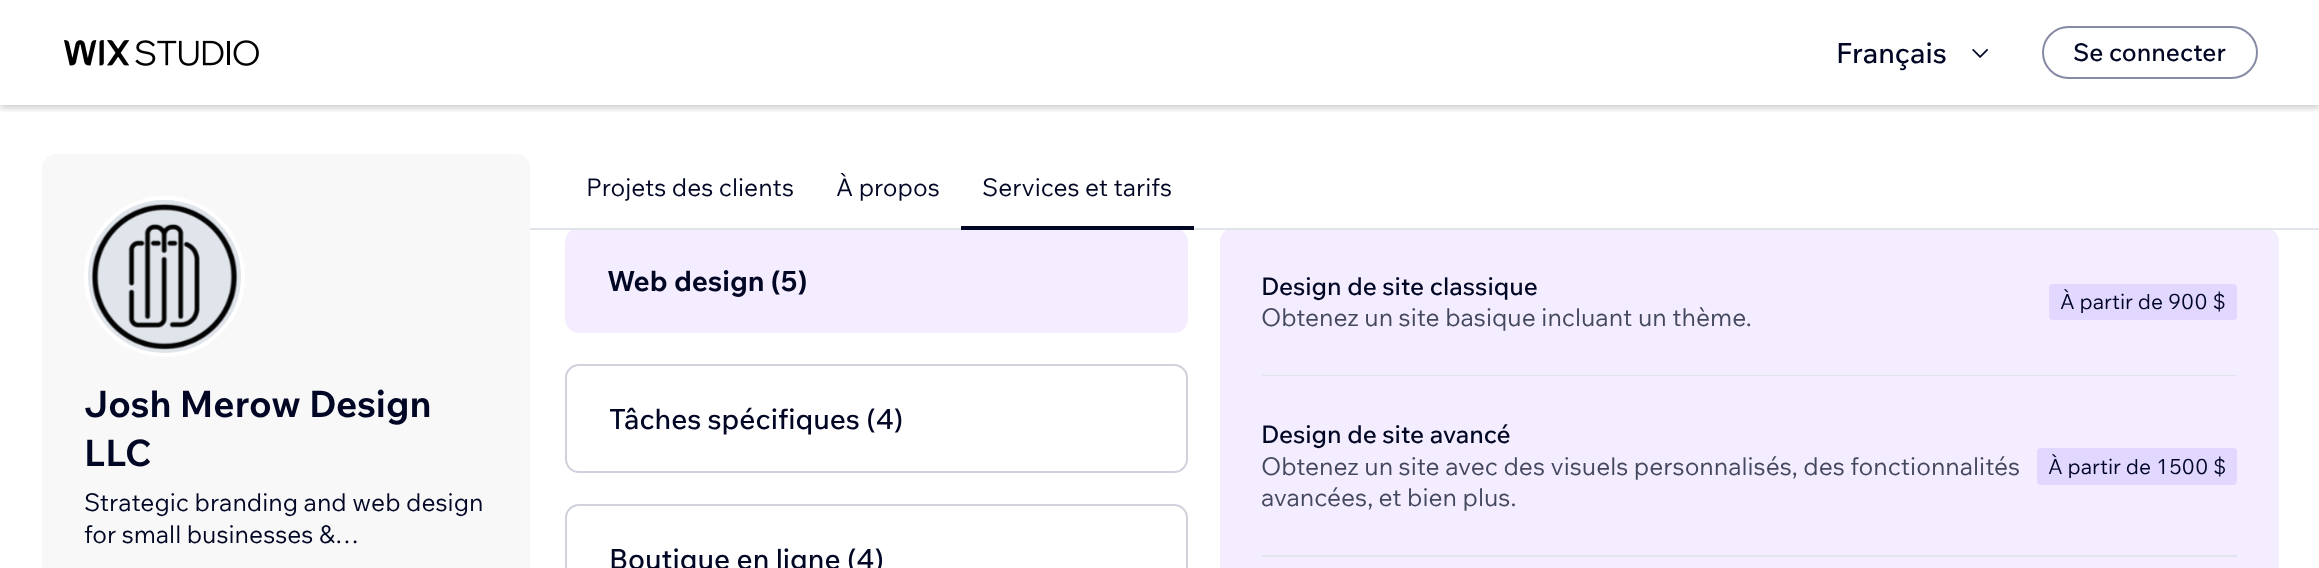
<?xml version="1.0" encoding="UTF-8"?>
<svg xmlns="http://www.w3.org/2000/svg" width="2319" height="568">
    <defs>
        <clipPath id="clip1"><rect x="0" y="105" width="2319" height="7"/></clipPath>
        <filter id="blur1" x="-50%" y="-200%" width="200%" height="500%"><feGaussianBlur stdDeviation="3.5"/></filter>
        <clipPath id="clip2"><rect x="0" y="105" width="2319" height="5"/></clipPath>
        <filter id="blur2" x="-50%" y="-200%" width="200%" height="500%"><feGaussianBlur stdDeviation="5"/></filter>
    </defs>
    <rect width="100%" height="100%" fill="#FFFFFF"/>
    <g clip-path="url(#clip1)">
        <rect x="0" y="4" width="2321" height="105" fill="#000624" fill-opacity="0.12" filter="url(#blur1)"/>
    </g>
    <g clip-path="url(#clip2)">
        <rect x="0" y="0" width="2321" height="105" fill="#000624" fill-opacity="0.12" filter="url(#blur2)"/>
    </g>
    <image x="64" y="40" width="66" height="26" href="img_01.png"/>
    <image x="135" y="40" width="124" height="26" href="img_02.png"/>
    <text x="1836" y="63" font-family="Wix Madefor Text" font-size="28" font-weight="500" fill="#000624">Français</text>
    <image x="1972" y="49" width="16" height="9" href="img_03.png"/>
    <rect x="2043" y="27" width="214" height="51" rx="25.5" fill="none" stroke="#868AA5" stroke-width="2"/>
    <text x="2073" y="61" font-family="Wix Madefor Text" font-size="24.5" font-weight="500" fill="#000624">Se connecter</text>
    <rect x="42" y="154" width="488" height="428" rx="14" fill="#F8F8F9"/>
    <circle cx="164.5" cy="276.5" r="78.5" fill="#DFE5EB" stroke="#FFFFFF" stroke-width="4"/>
    <image x="91" y="203" width="147" height="147" href="img_04.png"/>
    <text font-family="Wix Madefor Text" font-size="36.75" font-weight="700" fill="#000624">
        <tspan x="84" y="417">Josh Merow Design</tspan>
        <tspan x="84" y="466">LLC</tspan>
    </text>
    <text font-family="Wix Madefor Text" font-size="24.5" fill="#000624">
        <tspan x="84" y="511">Strategic branding and web design</tspan>
        <tspan x="84" y="543">for small businesses &amp;…</tspan>
    </text>
    <text x="586" y="196" font-family="Wix Madefor Text" font-size="24.5" fill="#000624">Projets des clients</text>
    <text x="836" y="196" font-family="Wix Madefor Text" font-size="24.5" fill="#000624">À propos</text>
    <text x="982" y="196" font-family="Wix Madefor Text" font-size="24.5" fill="#000624">Services et tarifs</text>
    <rect x="565" y="228" width="623" height="105" rx="14" fill="#F4EDFF"/>
    <rect x="1220" y="228" width="1059" height="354" rx="14" fill="#F4EDFF"/>
    <rect x="1220" y="228" width="1059" height="148" rx="14" fill="#F4EDFF"/>
    <rect x="530" y="228" width="1789" height="2" fill="#DFE5EB"/>
    <rect x="961" y="226" width="233" height="4" fill="#000624"/>
    <text x="607" y="291" font-family="Wix Madefor Text" font-size="28" font-weight="700" fill="#000624">Web design (5)</text>
    <rect x="566" y="365" width="621" height="107" rx="13" fill="none" stroke="#CFD1DC" stroke-width="2"/>
    <text x="609" y="429" font-family="Wix Madefor Text" font-size="28" font-weight="500" fill="#000624">Tâches spécifiques (4)</text>
    <rect x="566" y="505" width="621" height="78" rx="13" fill="none" stroke="#CFD1DC" stroke-width="2"/>
    <text x="609" y="569" font-family="Wix Madefor Text" font-size="28" font-weight="500" fill="#000624">Boutique en ligne (4)</text>
    <text x="1261" y="295" font-family="Wix Madefor Text" font-size="24.5" font-weight="500" fill="#000624">Design de site classique</text>
    <text x="1261" y="326" font-family="Wix Madefor Text" font-size="24.5" fill="#44485F">Obtenez un site basique incluant un thème.</text>
    <rect x="2049" y="284" width="188" height="36" rx="4" fill="#E2D8FF"/>
    <text x="2060" y="309" font-family="Wix Madefor Text" font-size="21" fill="#000624">À partir de</text>
    <text x="2168" y="309" font-family="Wix Madefor Text" font-size="21" fill="#000624">900 $</text>
    <rect x="1262" y="375" width="975" height="1" fill="#DFE5EB"/>
    <text x="1261" y="443" font-family="Wix Madefor Text" font-size="24.5" font-weight="500" fill="#000624">Design de site avancé</text>
    <text font-family="Wix Madefor Text" font-size="24.5" fill="#44485F">
        <tspan x="1261" y="475">Obtenez un site avec des visuels personnalisés, des fonctionnalités</tspan>
        <tspan x="1261" y="506">avancées, et bien plus.</tspan>
    </text>
    <rect x="2037" y="448" width="200" height="37" rx="4" fill="#E2D8FF"/>
    <text x="2048" y="474" font-family="Wix Madefor Text" font-size="21" fill="#000624">À partir de</text>
    <text x="2157" y="474" font-family="Wix Madefor Text" font-size="21" fill="#000624">1 500 $</text>
    <rect x="1262" y="555" width="975" height="2" fill="#DFE5EB"/>
</svg>
